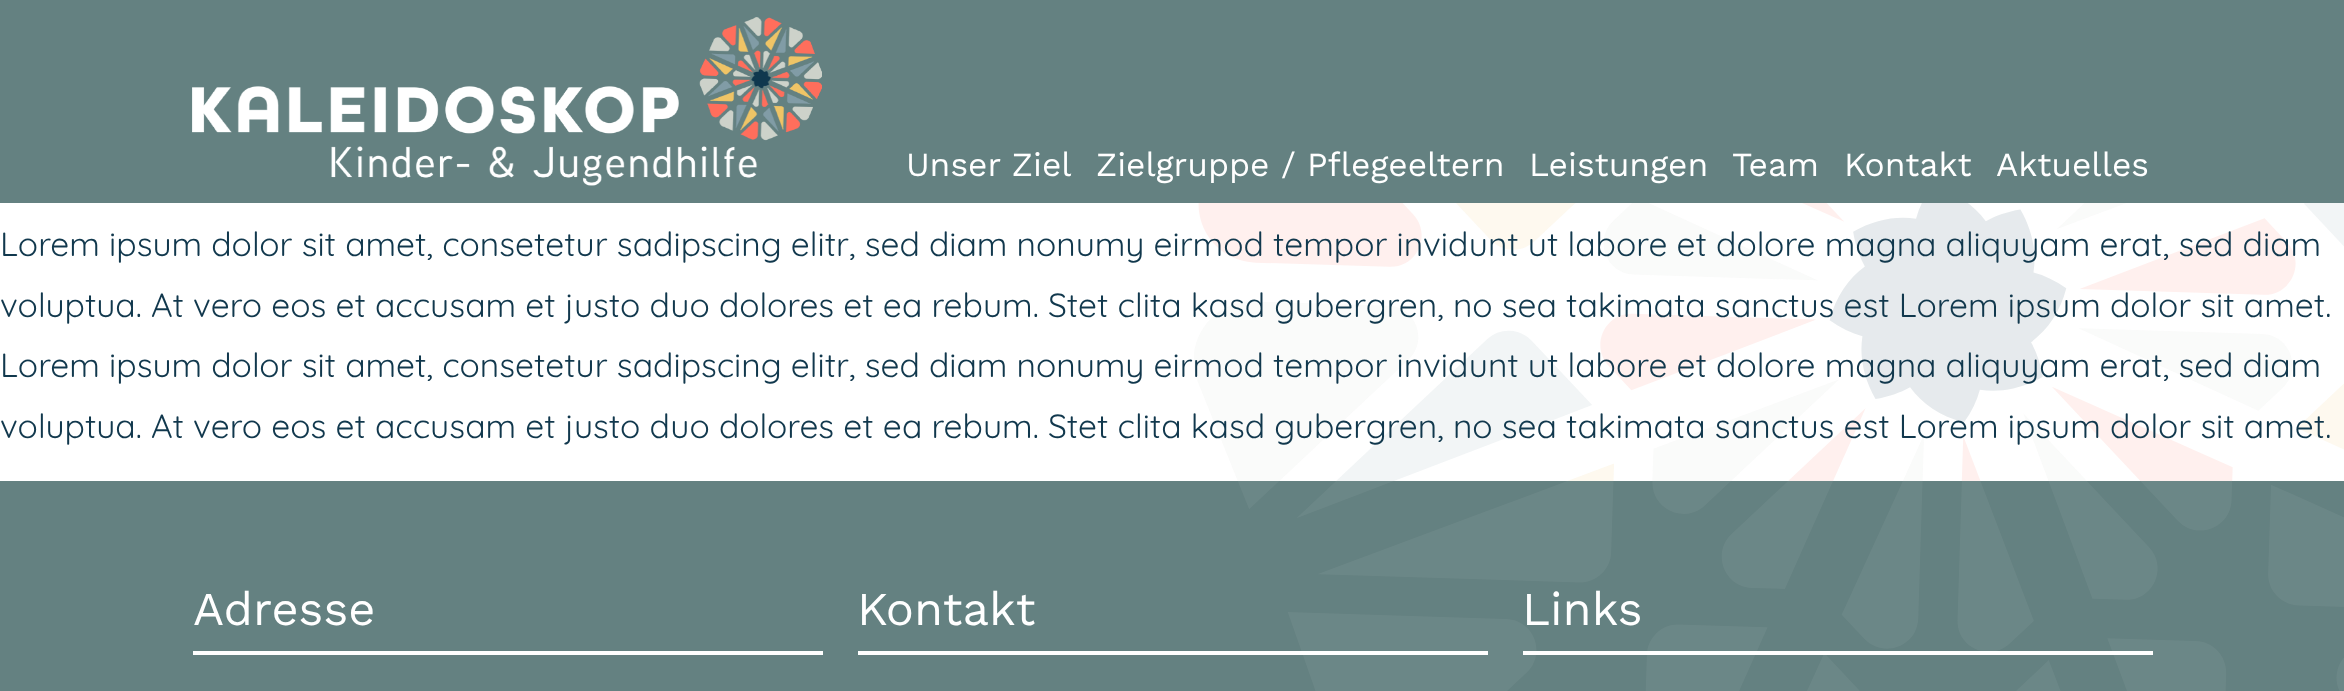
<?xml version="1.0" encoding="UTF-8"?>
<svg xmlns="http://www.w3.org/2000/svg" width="2344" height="691">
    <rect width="100%" height="100%" fill="#FFFFFF"/>
    <image x="1194" y="203" width="1150" height="278" href="img_01.png"/>
    <rect x="0" y="0" width="2344" height="203" fill="#648181"/>
    <image x="192" y="17" width="630" height="169" href="img_02.png"/>
    <text x="906" y="176" font-family="Work Sans" font-size="33.6" fill="#FFFFFF">Unser Ziel</text>
    <text x="1096" y="176" font-family="Work Sans" font-size="33.6" fill="#FFFFFF">Zielgruppe / Pflegeeltern</text>
    <text x="1529" y="176" font-family="Work Sans" font-size="33.6" fill="#FFFFFF">Leistungen</text>
    <text x="1732" y="176" font-family="Work Sans" font-size="33.6" fill="#FFFFFF">Team</text>
    <text x="1844" y="176" font-family="Work Sans" font-size="33.6" fill="#FFFFFF">Kontakt</text>
    <text x="1996" y="176" font-family="Work Sans" font-size="33.6" fill="#FFFFFF">Aktuelles</text>
    <text font-family="Quicksand" font-size="33.6" fill="#11384D">
        <tspan x="0" y="256">Lorem ipsum dolor sit amet, consetetur sadipscing elitr, sed diam nonumy eirmod tempor invidunt ut labore et dolore magna aliquyam erat, sed diam</tspan>
        <tspan x="0" y="317">voluptua. At vero eos et accusam et justo duo dolores et ea rebum. Stet clita kasd gubergren, no sea takimata sanctus est Lorem ipsum dolor sit amet.</tspan>
        <tspan x="0" y="377">Lorem ipsum dolor sit amet, consetetur sadipscing elitr, sed diam nonumy eirmod tempor invidunt ut labore et dolore magna aliquyam erat, sed diam</tspan>
        <tspan x="0" y="438">voluptua. At vero eos et accusam et justo duo dolores et ea rebum. Stet clita kasd gubergren, no sea takimata sanctus est Lorem ipsum dolor sit amet.</tspan>
    </text>
    <rect x="0" y="481" width="2344" height="210" fill="#648181"/>
    <rect x="193" y="651" width="630" height="4" fill="#FFFFFF"/>
    <text x="193" y="625" font-family="Work Sans" font-size="47" fill="#FFFFFF">Adresse</text>
    <image x="1238" y="481" width="1106" height="210" href="img_03.png"/>
    <rect x="858" y="651" width="630" height="4" fill="#FFFFFF"/>
    <text x="857" y="625" font-family="Work Sans" font-size="47" fill="#FFFFFF">Kontakt</text>
    <rect x="1523" y="651" width="630" height="4" fill="#FFFFFF"/>
    <text x="1522" y="625" font-family="Work Sans" font-size="47" fill="#FFFFFF">Links</text>
</svg>
